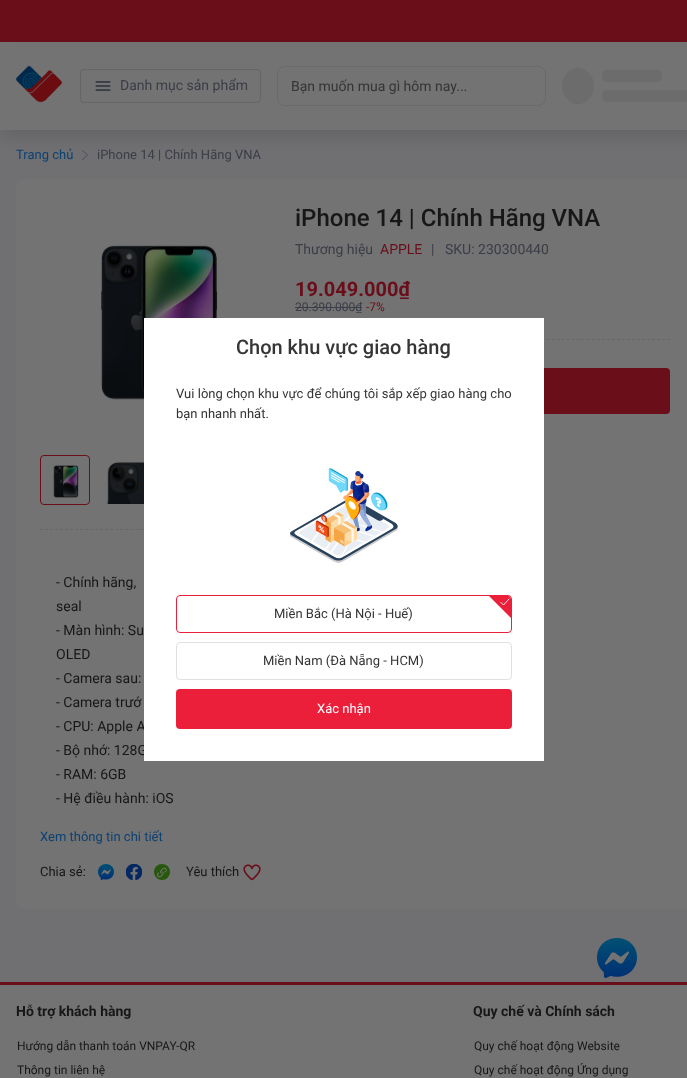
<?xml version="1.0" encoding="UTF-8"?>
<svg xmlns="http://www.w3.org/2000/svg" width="687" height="1078">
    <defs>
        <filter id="blur1" x="-50%" y="-200%" width="200%" height="500%"><feGaussianBlur stdDeviation="8"/></filter>
        <clipPath id="clip1"><rect x="295" y="275" width="115" height="24"/></clipPath>
    </defs>
    <rect width="100%" height="100%" fill="#707072"/>
    <rect x="0" y="0" width="687" height="42" fill="#6A0E1A"/>
    <path d="M 82.5 159.5 L 87.5 155 L 82.5 150.5" fill="none" stroke="#4B4D58" stroke-linecap="round" stroke-linejoin="round"/>
    <rect x="0" y="50" width="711" height="88" fill="#000000" fill-opacity="0.1" filter="url(#blur1)"/>
    <rect x="0" y="42" width="687" height="88" fill="#737373"/>
    <image x="16" y="65" width="46" height="38" href="img_01.png"/>
    <rect x="80.5" y="69.5" width="180" height="33" rx="3.5" fill="none" stroke="#656565"/>
    <image x="95" y="81" width="16" height="10" href="img_02.png"/>
    <text x="120" y="90" font-family="Roboto" font-size="14" fill="#3B3D47">Danh mục sản phẩm</text>
    <rect x="277.5" y="66.5" width="268" height="39" rx="7.5" fill="none" stroke="#6A6A6A"/>
    <text x="291" y="91" font-family="Roboto" font-size="14" fill="#353535">Bạn muốn mua gì hôm nay...</text>
    <ellipse cx="578" cy="86" rx="16" ry="18" fill="#6C6C6C"/>
    <rect x="602" y="70" width="60" height="12" rx="5" fill="#6C6C6C"/>
    <rect x="602" y="90" width="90" height="12" rx="5" fill="#6C6C6C"/>
    <text x="16" y="159" font-family="Roboto" font-size="13" fill="#0C4173">Trang chủ</text>
    <text x="97" y="159" font-family="Roboto" font-size="13" fill="#3B3D47">iPhone 14 | Chính Hãng VNA</text>
    <rect x="16" y="179" width="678" height="730" rx="8" fill="#737373"/>
    <text x="295" y="226" font-family="Roboto" font-size="24" font-weight="500" fill="#171717">iPhone 14 | Chính Hãng VNA</text>
    <text x="295" y="254" font-family="Roboto" font-size="14" fill="#3B3D47">Thương hiệu</text>
    <text x="380" y="254" font-family="Roboto" font-size="14" fill="#6A0E1A">APPLE</text>
    <text x="431" y="254" font-family="Roboto" font-size="14" fill="#3B3D47">|</text>
    <text x="445" y="254" font-family="Roboto" font-size="14" fill="#3B3D47">SKU: 230300440</text>
    <g clip-path="url(#clip1)">
        <text x="295" y="296" font-family="Roboto" font-size="20" font-weight="700" fill="#6A0E1A">19.049.000₫</text>
    </g>
    <text x="295" y="311" font-family="Roboto" font-size="12" fill="#3B3D47">20.390.000₫</text>
    <rect x="295" y="307" width="67" height="1" fill="#3B3D47"/>
    <text x="366" y="311" font-family="Roboto" font-size="12" fill="#6A0E1A">-7%</text>
    <path d="M 295 339.5 H 670" fill="none" stroke="#67676C" stroke-dasharray="3 2.03"/>
    <rect x="295" y="368" width="375" height="46" rx="4" fill="#6A0E1A"/>
    <image x="101" y="245" width="117" height="155" href="img_03.png"/>
    <rect x="40.5" y="455.5" width="49" height="49" rx="3.5" fill="none" stroke="#6A0E1A"/>
    <image x="53" y="465" width="26" height="33" href="img_04.png"/>
    <image x="107" y="462" width="37" height="42" href="img_05.png"/>
    <path d="M 40 529.5 H 279" fill="none" stroke="#67676C" stroke-dasharray="3 2.02"/>
    <text font-family="Roboto" font-size="14" fill="#171717">
        <tspan x="56" y="587">- Chính hãng,</tspan>
        <tspan x="56" y="611">seal</tspan>
        <tspan x="56" y="635">- Màn hình: Su</tspan>
        <tspan x="56" y="659">OLED</tspan>
        <tspan x="56" y="683">- Camera sau:</tspan>
        <tspan x="56" y="707">- Camera trướ</tspan>
        <tspan x="56" y="731">- CPU: Apple A</tspan>
        <tspan x="56" y="755">- Bộ nhớ: 128G</tspan>
        <tspan x="56" y="779">- RAM: 6GB</tspan>
        <tspan x="56" y="803">- Hệ điều hành: iOS</tspan>
    </text>
    <text x="40" y="841" font-family="Roboto" font-size="13" fill="#0C4173">Xem thông tin chi tiết</text>
    <text x="40" y="876" font-family="Roboto" font-size="13" fill="#171717">Chia sẻ:</text>
    <image x="98" y="864" width="16" height="16" href="img_06.png"/>
    <image x="126" y="864" width="16" height="16" href="img_07.png"/>
    <circle cx="162" cy="872" r="8" fill="#25580C"/>
    <image x="157" y="867" width="10" height="11" href="img_08.png"/>
    <text x="186" y="876" font-family="Roboto" font-size="13" fill="#171717">Yêu thích</text>
    <image x="243" y="864" width="18" height="17" href="img_09.png"/>
    <image x="597" y="938" width="40" height="40" href="img_10.png"/>
    <rect x="0" y="982" width="687" height="3" fill="#6A0E1A"/>
    <rect x="0" y="985" width="687" height="93" fill="#737373"/>
    <text x="16" y="1016" font-family="Roboto" font-size="14" font-weight="700" fill="#171717">Hỗ trợ khách hàng</text>
    <text x="17" y="1050" font-family="Roboto" font-size="12" fill="#171717">Hướng dẫn thanh toán VNPAY-QR</text>
    <text x="17" y="1074" font-family="Roboto" font-size="12" fill="#171717">Thông tin liên hệ</text>
    <text x="473" y="1016" font-family="Roboto" font-size="14" font-weight="700" fill="#171717">Quy chế và Chính sách</text>
    <text x="474" y="1050" font-family="Roboto" font-size="12" fill="#171717">Quy chế hoạt động Website</text>
    <text x="474" y="1074" font-family="Roboto" font-size="12" fill="#171717">Quy chế hoạt động Ứng dụng</text>
    <rect x="144" y="318" width="400" height="443" fill="#FFFFFF"/>
    <text x="236" y="354" font-family="Roboto" font-size="20" font-weight="500" fill="#353535">Chọn khu vực giao hàng</text>
    <text font-family="Roboto" font-size="13" fill="#353535">
        <tspan x="176" y="398" word-spacing="0.1">Vui lòng chọn khu vực để chúng tôi sắp xếp giao hàng cho</tspan>
        <tspan x="176" y="418">bạn nhanh nhất.</tspan>
    </text>
    <image x="290" y="468" width="108" height="95" href="img_11.png"/>
    <rect x="176.5" y="595.5" width="335" height="37" rx="3.5" fill="none" stroke="#EB1F3A"/>
    <path d="M 489 596 H 508 C 509.5 596 511 597.5 511 599 V 618 Z" fill="#EB1F3A"/>
    <path d="M 501 602.5 L 503.5 605 L 509 599" fill="none" stroke="#FFFFFF" stroke-width="0.9" stroke-linecap="round" stroke-linejoin="round"/>
    <text x="274" y="618" font-family="Roboto" font-size="13" fill="#353535">Miền Bắc (Hà Nội - Huế)</text>
    <rect x="176.5" y="642.5" width="335" height="37" rx="3.5" fill="none" stroke="#E0E0E0"/>
    <text x="263" y="665" font-family="Roboto" font-size="13" fill="#353535">Miền Nam (Đà Nẵng - HCM)</text>
    <rect x="176" y="689" width="336" height="40" rx="4" fill="#EB1F3A"/>
    <text x="317" y="713" font-family="Roboto" font-size="13" fill="#FFFFFF">Xác nhận</text>
</svg>
